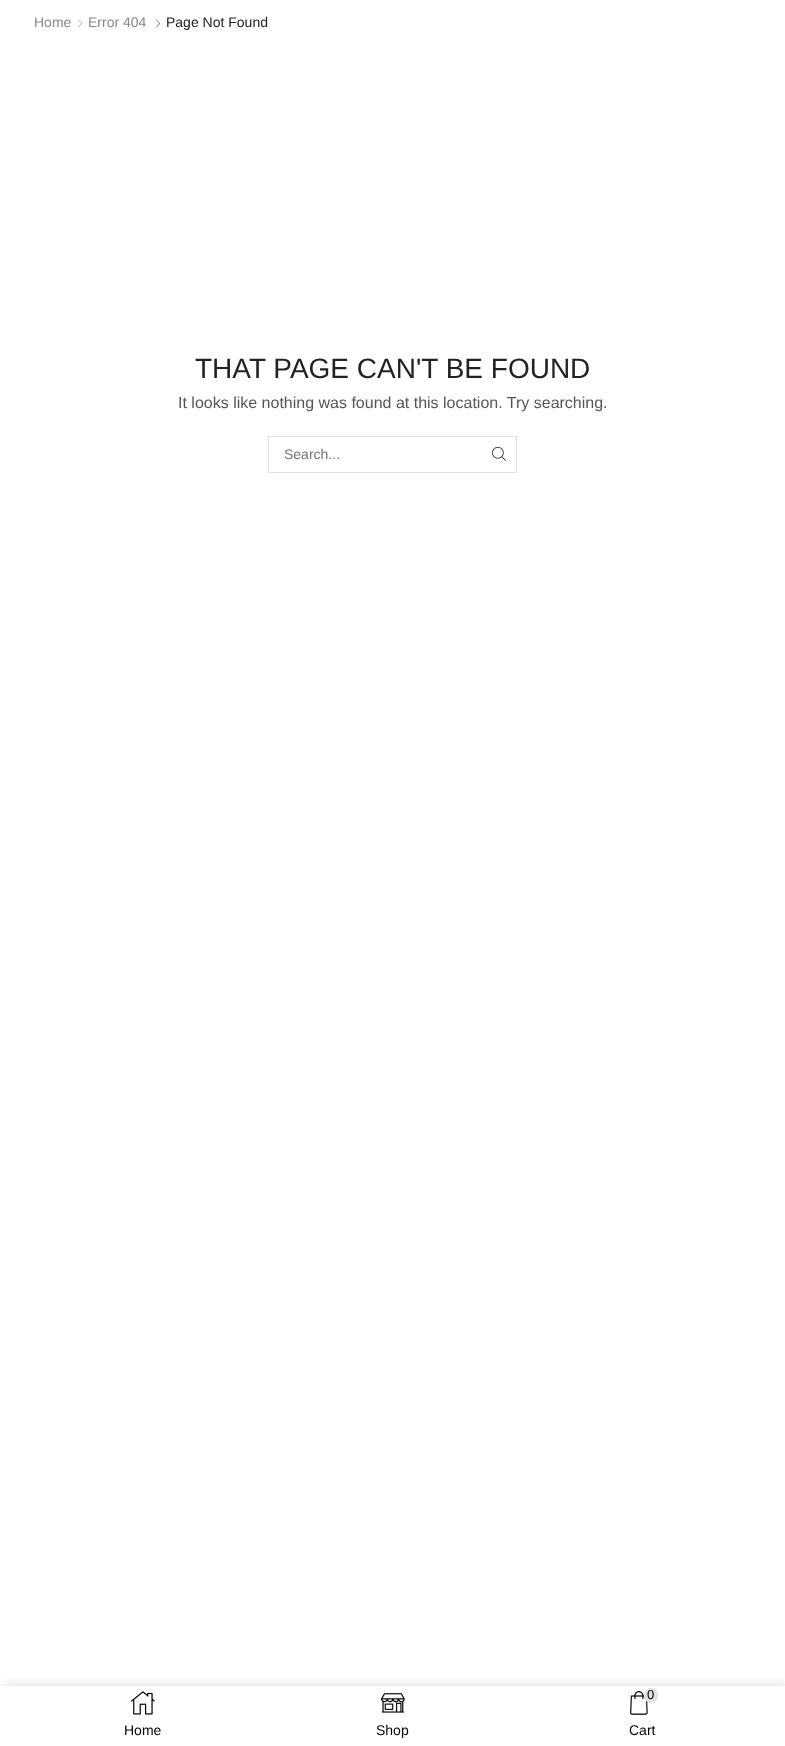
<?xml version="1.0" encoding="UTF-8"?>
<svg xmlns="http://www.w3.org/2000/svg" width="785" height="1746">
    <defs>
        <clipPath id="clip1"><rect x="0" y="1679" width="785" height="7"/></clipPath>
        <filter id="blur1" x="-50%" y="-200%" width="200%" height="500%"><feGaussianBlur stdDeviation="6"/></filter>
    </defs>
    <rect width="100%" height="100%" fill="#FFFFFF"/>
    <text x="34" y="27" font-family="Liberation Sans" font-size="14" fill="#888888">Home</text>
    <image x="78" y="19" width="4" height="9" href="img_01.png"/>
    <text x="88" y="27" font-family="Liberation Sans" font-size="14" fill="#888888">Error 404</text>
    <image x="156" y="19" width="4" height="9" href="img_02.png"/>
    <text x="166" y="27" font-family="Liberation Sans" font-size="14" fill="#222222">Page Not Found</text>
    <text x="195" y="378" font-family="Liberation Sans" font-size="28" fill="#222222">THAT PAGE CAN'T BE FOUND</text>
    <text x="178" y="408" font-family="Liberation Sans" font-size="16" fill="#555555">It looks like nothing was found at this location. Try searching.</text>
    <rect x="268.5" y="436.5" width="248" height="36" fill="none" stroke="#E1E1E1"/>
    <text x="284" y="459" font-family="Liberation Sans" font-size="14" fill="#757575">Search...</text>
    <image x="492" y="446" width="14" height="15" href="img_03.png"/>
    <g clip-path="url(#clip1)">
        <rect x="2" y="1686" width="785" height="60" fill="#000000" fill-opacity="0.15" filter="url(#blur1)"/>
    </g>
    <image x="131" y="1691" width="24" height="24" href="img_04.png"/>
    <text x="124" y="1735" font-family="Liberation Sans" font-size="14" fill="#000000">Home</text>
    <image x="381" y="1693" width="24" height="20" href="img_05.png"/>
    <text x="376" y="1735" font-family="Liberation Sans" font-size="14" fill="#000000">Shop</text>
    <image x="630" y="1691" width="18" height="24" href="img_06.png"/>
    <rect x="644" y="1688" width="14" height="15" rx="7" fill="#E1E1E1"/>
    <text x="647" y="1699" font-family="Liberation Sans" font-size="13" fill="#000000">0</text>
    <text x="629" y="1735" font-family="Liberation Sans" font-size="14" fill="#000000">Cart</text>
</svg>
